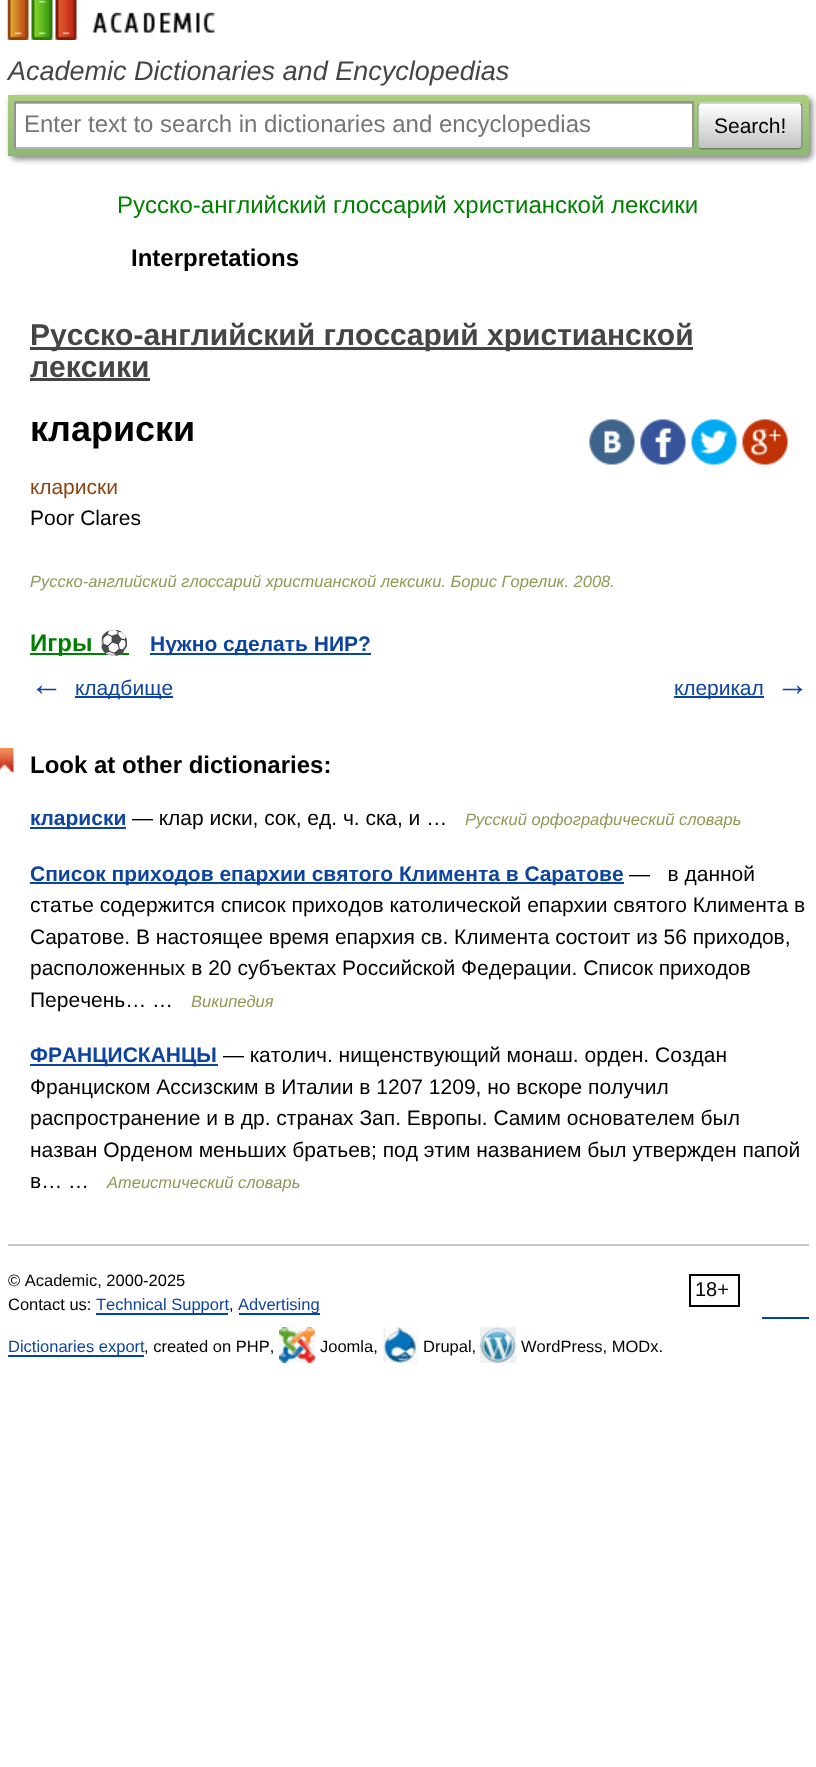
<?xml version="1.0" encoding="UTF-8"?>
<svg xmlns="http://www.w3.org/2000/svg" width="816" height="1767">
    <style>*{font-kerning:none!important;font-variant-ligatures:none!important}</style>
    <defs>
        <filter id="blur1" x="-50%" y="-200%" width="200%" height="500%"><feGaussianBlur stdDeviation="3"/></filter>
        <linearGradient id="g1" gradientUnits="userSpaceOnUse" x1="408" y1="94" x2="408" y2="156"><stop offset="0" stop-color="#ABCF7E"/><stop offset="1" stop-color="#8EB874"/></linearGradient>
        <clipPath id="clip1"><rect x="698" y="102" width="105" height="48" rx="5"/></clipPath>
        <linearGradient id="g2" gradientUnits="userSpaceOnUse" x1="750" y1="59" x2="750" y2="104"><stop offset="0" stop-color="#FFFFFF"/><stop offset="1" stop-color="#C1C1C1"/></linearGradient>
        <linearGradient id="g3" gradientUnits="userSpaceOnUse" x1="750" y1="104" x2="750" y2="149"><stop offset="0" stop-color="#FFFFFF"/><stop offset="1" stop-color="#C1C1C1"/></linearGradient>
        <linearGradient id="g4" gradientUnits="userSpaceOnUse" x1="750" y1="149" x2="750" y2="194"><stop offset="0" stop-color="#FFFFFF"/><stop offset="1" stop-color="#C1C1C1"/></linearGradient>
    </defs>
    <rect width="100%" height="100%" fill="#FFFFFF"/>
    <image x="7" y="0" width="208" height="40" href="img_01.png"/>
    <text x="8" y="80" font-family="Liberation Sans" font-size="27" font-style="italic" fill="#454545">Academic Dictionaries and Encyclopedias</text>
    <rect x="11" y="98" width="801" height="61" rx="5" fill="#000000" fill-opacity="0.5" filter="url(#blur1)"/>
    <path d="M 8 95 H 804 C 807 95 809 97 809 100 V 151 C 809 154 807 156 804 156 H 8 Z" fill="url(#g1)"/>
    <rect x="16" y="104" width="676" height="43" fill="#FFFFFF"/>
    <rect x="15" y="103" width="677" height="1" fill="#B3B3B3"/>
    <rect x="14" y="101" width="679" height="2" fill="#949494"/>
    <rect x="692" y="101" width="2" height="48" fill="#949494"/>
    <rect x="14" y="147" width="679" height="2" fill="#B4B4B4"/>
    <rect x="14" y="101" width="2" height="48" fill="#949494"/>
    <text x="24" y="132" font-family="Liberation Sans" font-size="24" fill="#757575">Enter text to search in dictionaries and encyclopedias</text>
    <g clip-path="url(#clip1)">
        <rect x="698" y="102" width="105" height="2" fill="url(#g2)"/>
        <rect x="698" y="104" width="105" height="45" fill="url(#g3)"/>
        <rect x="698" y="149" width="105" height="1" fill="url(#g4)"/>
    </g>
    <path d="M 699.5 104 C 700 103 701 103 702 103 H 798 C 799 103 800 103 800.5 104" fill="none" stroke="#D1E4BC" stroke-width="1.5"/>
    <path d="M 800.5 104 C 801.5 104.5 802 105.5 802 106.5 V 145.5 C 802 146.5 801.5 147.5 800.5 148" fill="none" stroke="#7A8E69" stroke-width="1.5"/>
    <path d="M 800.5 148 C 800 149 799 149 798 149 H 702 C 701 149 700 149 699.5 148" fill="none" stroke="#5D7250" stroke-width="1.5"/>
    <path d="M 699.5 148 C 698.5 147.5 698 146.5 698 145.5 V 106.5 C 698 105.5 698.5 104.5 699.5 104" fill="none" stroke="#9AAE89" stroke-width="1.5"/>
    <text x="714" y="133" font-family="Liberation Sans" font-size="21" fill="#000000">Search!</text>
    <text x="117" y="213" font-family="Liberation Sans" font-size="24" fill="#008000">Русско-английский глоссарий христианской лексики</text>
    <text x="131" y="266" font-family="Liberation Sans" font-size="24" font-weight="700" fill="#000000">Interpretations</text>
    <rect x="30" y="347" width="663" height="3" fill="#454545"/>
    <text font-family="Liberation Sans" font-size="30" font-weight="700" fill="#454545">
        <tspan x="30" y="345">Русско-английский глоссарий христианской</tspan>
        <tspan x="30" y="377">лексики</tspan>
    </text>
    <rect x="30" y="378" width="120" height="3" fill="#454545"/>
    <text x="30" y="441" font-family="Liberation Sans" font-size="36" font-weight="700" fill="#000000">клариски</text>
    <image x="589" y="419" width="46" height="46" href="img_02.png"/>
    <image x="640" y="419" width="46" height="46" href="img_03.png"/>
    <image x="691" y="419" width="46" height="46" href="img_04.png"/>
    <image x="742" y="419" width="46" height="46" href="img_05.png"/>
    <text x="30" y="494" font-family="Liberation Sans" font-size="21" fill="#8B4513">клариски</text>
    <text x="30" y="525" font-family="Liberation Sans" font-size="21" fill="#000000">Poor Clares</text>
    <text x="30" y="587" font-family="Liberation Sans" font-size="16.5" font-style="italic" fill="#939756">Русско-английский глоссарий христианской лексики. Борис Горелик. 2008.</text>
    <rect x="30" y="653" width="99" height="2" fill="#008000"/>
    <text x="30" y="651" font-family="Liberation Sans" font-size="24" font-weight="700" fill="#008000">Игры</text>
    <text x="99" y="651" font-family="Noto Color Emoji" font-size="24" font-weight="700" fill="#008000">⚽</text>
    <rect x="150" y="653" width="221" height="2" fill="#0D44A0"/>
    <text x="150" y="651" font-family="Liberation Sans" font-size="21" font-weight="700" fill="#0D44A0">Нужно сделать НИР?</text>
    <text x="30" y="695" font-family="Liberation Sans" font-size="33" font-weight="700" fill="#0D44A0">←</text>
    <rect x="75" y="696" width="98" height="2" fill="#0D44A0"/>
    <text x="75" y="695" font-family="Liberation Sans" font-size="21" fill="#0D44A0">кладбище</text>
    <rect x="674" y="696" width="90" height="2" fill="#0D44A0"/>
    <text x="674" y="695" font-family="Liberation Sans" font-size="21" fill="#0D44A0">клерикал</text>
    <text x="776" y="695" font-family="Liberation Sans" font-size="33" font-weight="700" fill="#0D44A0">→</text>
    <image x="0" y="748" width="14" height="24" href="img_06.png"/>
    <text x="30" y="773" font-family="Liberation Sans" font-size="24" font-weight="700" fill="#000000">Look at other dictionaries:</text>
    <rect x="30" y="827" width="96" height="2" fill="#0D44A0"/>
    <text x="30" y="825" font-family="Liberation Sans" font-size="21" font-weight="700" fill="#0D44A0">клариски</text>
    <text x="132" y="825" font-family="Liberation Sans" font-size="21" fill="#000000">— клар иски, сок, ед. ч. ска, и …</text>
    <text x="465" y="825" font-family="Liberation Sans" font-size="16.5" font-style="italic" fill="#939756">Русский орфографический словарь</text>
    <rect x="30" y="882" width="594" height="2" fill="#0D44A0"/>
    <text x="30" y="881" font-family="Liberation Sans" font-size="21" font-weight="700" fill="#0D44A0">Список приходов епархии святого Климента в Саратове</text>
    <text x="629" y="881" font-family="Liberation Sans" font-size="21" fill="#000000" xml:space="preserve">—   в данной</text>
    <text font-family="Liberation Sans" font-size="21" fill="#000000">
        <tspan x="30" y="912">статье содержится список приходов католической епархии святого Климента в</tspan>
        <tspan x="30" y="944">Саратове. В настоящее время епархия св. Климента состоит из 56 приходов,</tspan>
        <tspan x="30" y="975">расположенных в 20 субъектах Российской Федерации. Список приходов</tspan>
        <tspan x="30" y="1007">Перечень… …</tspan>
    </text>
    <text x="191" y="1007" font-family="Liberation Sans" font-size="16.5" font-style="italic" fill="#939756">Википедия</text>
    <rect x="30" y="1064" width="188" height="2" fill="#0D44A0"/>
    <text x="30" y="1062" font-family="Liberation Sans" font-size="21" font-weight="700" fill="#0D44A0">ФРАНЦИСКАНЦЫ</text>
    <text x="223" y="1062" font-family="Liberation Sans" font-size="21" fill="#000000">— католич. нищенствующий монаш. орден. Создан</text>
    <text font-family="Liberation Sans" font-size="21" fill="#000000">
        <tspan x="30" y="1094">Франциском Ассизским в Италии в 1207 1209, но вскоре получил</tspan>
        <tspan x="30" y="1125">распространение и в др. странах Зап. Европы. Самим основателем был</tspan>
        <tspan x="30" y="1157">назван Орденом меньших братьев; под этим названием был утвержден папой</tspan>
        <tspan x="30" y="1188">в… …</tspan>
    </text>
    <text x="107" y="1188" font-family="Liberation Sans" font-size="16.5" font-style="italic" fill="#939756">Атеистический словарь</text>
    <rect x="8" y="1244" width="801" height="2" fill="#C7C7C7"/>
    <text x="8" y="1286" font-family="Liberation Sans" font-size="16.5" fill="#000000">© Academic, 2000-2025</text>
    <rect x="690" y="1275" width="49" height="31" fill="none" stroke="#000000" stroke-width="2"/>
    <text x="695" y="1296" font-family="Liberation Sans" font-size="20" fill="#000000">18+</text>
    <text x="8" y="1310" font-family="Liberation Sans" font-size="16.5" fill="#000000">Contact us:</text>
    <rect x="96" y="1313" width="132" height="2" fill="#0044AA"/>
    <text x="96" y="1310" font-family="Liberation Sans" font-size="16.5" fill="#0D44A0">Technical Support</text>
    <text x="229" y="1310" font-family="Liberation Sans" font-size="16.5" fill="#000000">,</text>
    <rect x="239" y="1313" width="81" height="2" fill="#0044AA"/>
    <text x="238" y="1310" font-family="Liberation Sans" font-size="16.5" fill="#0D44A0">Advertising</text>
    <rect x="762" y="1317" width="47" height="2" fill="#0044AA"/>
    <rect x="8" y="1355" width="136" height="2" fill="#0044AA"/>
    <text x="8" y="1352" font-family="Liberation Sans" font-size="16.5" fill="#0D44A0">Dictionaries export</text>
    <text x="144" y="1352" font-family="Liberation Sans" font-size="16.5" fill="#000000">, created on PHP,</text>
    <image x="279" y="1327" width="36" height="36" href="img_07.png"/>
    <text x="320" y="1352" font-family="Liberation Sans" font-size="16.5" fill="#000000">Joomla,</text>
    <image x="382" y="1327" width="37" height="36" href="img_08.png"/>
    <text x="423" y="1352" font-family="Liberation Sans" font-size="16.5" fill="#000000">Drupal,</text>
    <image x="480" y="1327" width="36" height="36" href="img_09.png"/>
    <text x="521" y="1352" font-family="Liberation Sans" font-size="16.5" fill="#000000">WordPress, MODx.</text>
</svg>
